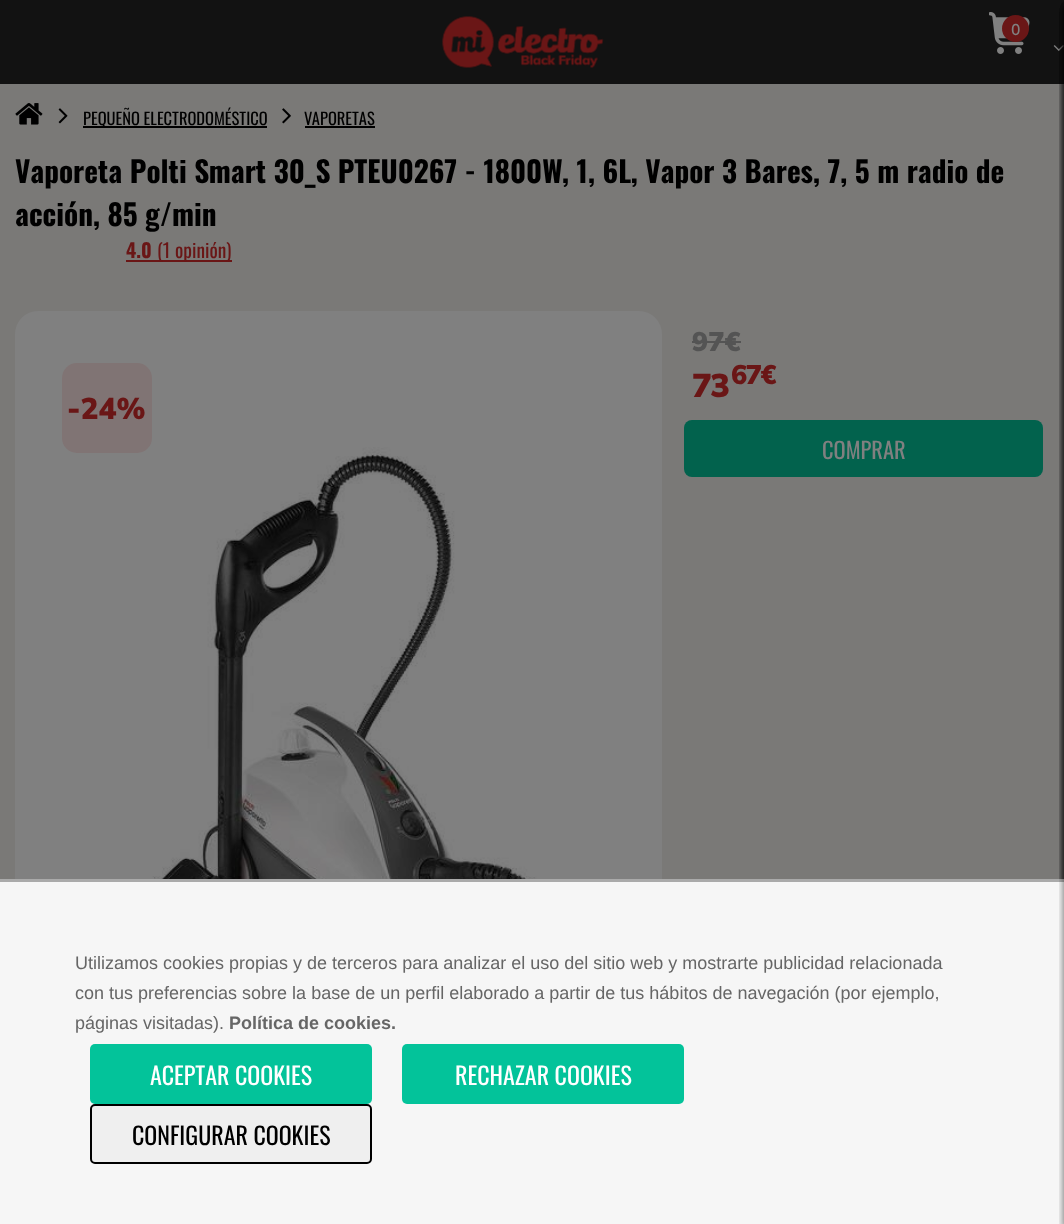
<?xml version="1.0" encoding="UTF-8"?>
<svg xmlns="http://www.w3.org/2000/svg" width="1064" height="1224">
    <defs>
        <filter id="blur1" x="-50%" y="-200%" width="200%" height="500%"><feGaussianBlur stdDeviation="4"/></filter>
    </defs>
    <rect width="100%" height="100%" fill="#7A7977"/>
    <rect x="0" y="0" width="1064" height="84" fill="#121212"/>
    <image x="1053" y="45" width="11" height="6" href="img_03.png"/>
    <rect x="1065" y="5" width="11" height="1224" fill="#000000" fill-opacity="0.41" filter="url(#blur1)"/>
    <rect x="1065" y="5" width="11" height="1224" fill="#000000" fill-opacity="0.41" filter="url(#blur1)"/>
    <rect x="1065" y="5" width="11" height="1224" fill="#000000" fill-opacity="0.41" filter="url(#blur1)"/>
    <rect x="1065" y="5" width="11" height="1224" fill="#000000" fill-opacity="0.41" filter="url(#blur1)"/>
    <rect x="15" y="311" width="647" height="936" rx="23" fill="#808080"/>
    <rect x="0" y="882" width="1064" height="342" fill="#F6F6F6"/>
    <rect x="0" y="879" width="1064" height="3" fill="#AAAAAA"/>
    <rect x="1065" y="5" width="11" height="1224" fill="#000000" fill-opacity="0.41" filter="url(#blur1)"/>
    <image x="442" y="16" width="162" height="52" href="img_01.png"/>
    <image x="989" y="12" width="41" height="42" href="img_02.png"/>
    <circle cx="1015.5" cy="28.5" r="13.5" fill="#6A1616"/>
    <text x="1011" y="35" font-family="Muli" font-size="15" font-weight="700" fill="#808080">0</text>
    <image x="15" y="103" width="28" height="22" href="img_04.png"/>
    <image x="58" y="108" width="10" height="16" href="img_05.png"/>
    <rect x="83" y="126" width="184" height="2" fill="#000000"/>
    <text x="83" y="125" font-family="Oswald" font-size="16.5" fill="#000000">PEQUEÑO ELECTRODOMÉSTICO</text>
    <image x="282" y="108" width="9" height="16" href="img_06.png"/>
    <text x="304" y="125" font-family="Oswald" font-size="16.5" fill="#000000">VAPORETAS</text>
    <rect x="305" y="126" width="70" height="2" fill="#000000"/>
    <text font-family="Oswald" font-size="29.25" font-weight="700" fill="#000000">
        <tspan x="15" y="183">Vaporeta Polti Smart 30_S PTEU0267 - 1800W, 1, 6L, Vapor 3 Bares, 7, 5 m radio de</tspan>
        <tspan x="15" y="226">acción, 85 g/min</tspan>
    </text>
    <text x="126" y="258" font-family="Oswald" font-size="19.5" font-weight="700" fill="#6A1616">4.0</text>
    <rect x="126" y="260" width="106" height="2" fill="#6A1616"/>
    <text x="157" y="258" font-family="Oswald" font-size="19.5" fill="#6A1616">(1 opinión)</text>
    <image x="117" y="447" width="450" height="432" href="img_07.png"/>
    <rect x="62" y="363" width="90" height="90" rx="15" fill="#807474"/>
    <text x="67" y="419" font-family="Mulish" font-size="30" font-weight="900" fill="#6A1616">-24%</text>
    <text x="692" y="351" font-family="Mulish" font-size="27" font-weight="900" fill="#545454">97€</text>
    <rect x="692" y="341" width="49" height="2" fill="#545454"/>
    <text x="692" y="397" font-family="Mulish" font-size="33" font-weight="900" letter-spacing="-1.5" fill="#6A1616">73</text>
    <text x="731" y="384" font-family="Mulish" font-size="27" font-weight="900" letter-spacing="-1.5" fill="#6A1616">67€</text>
    <rect x="684" y="420" width="359" height="57" rx="8" fill="#02624D"/>
    <text x="822" y="459" font-family="Oswald" font-size="22.5" fill="#808080">COMPRAR</text>
    <rect x="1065" y="5" width="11" height="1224" fill="#000000" fill-opacity="0.41" filter="url(#blur1)"/>
    <text font-family="Liberation Sans" font-size="18" fill="#666666">
        <tspan x="75" y="969">Utilizamos cookies propias y de terceros para analizar el uso del sitio web y mostrarte publicidad relacionada</tspan>
        <tspan x="75" y="999">con tus preferencias sobre la base de un perfil elaborado a partir de tus hábitos de navegación (por ejemplo,</tspan>
        <tspan x="75" y="1029">páginas visitadas).</tspan>
    </text>
    <text x="229" y="1029" font-family="Liberation Sans" font-size="18" font-weight="700" fill="#666666">Política de cookies.</text>
    <rect x="90" y="1044" width="282" height="60" rx="5" fill="#03C39A"/>
    <text x="150" y="1085" font-family="Oswald" font-size="24" fill="#FFFFFF">ACEPTAR COOKIES</text>
    <rect x="402" y="1044" width="282" height="60" rx="5" fill="#03C39A"/>
    <text x="455" y="1085" font-family="Oswald" font-size="24" fill="#FFFFFF">RECHAZAR COOKIES</text>
    <rect x="91" y="1105" width="280" height="58" rx="4" fill="#EFEFEF" stroke="#000000" stroke-width="2"/>
    <text x="132" y="1145" font-family="Oswald" font-size="24" fill="#000000">CONFIGURAR COOKIES</text>
</svg>
